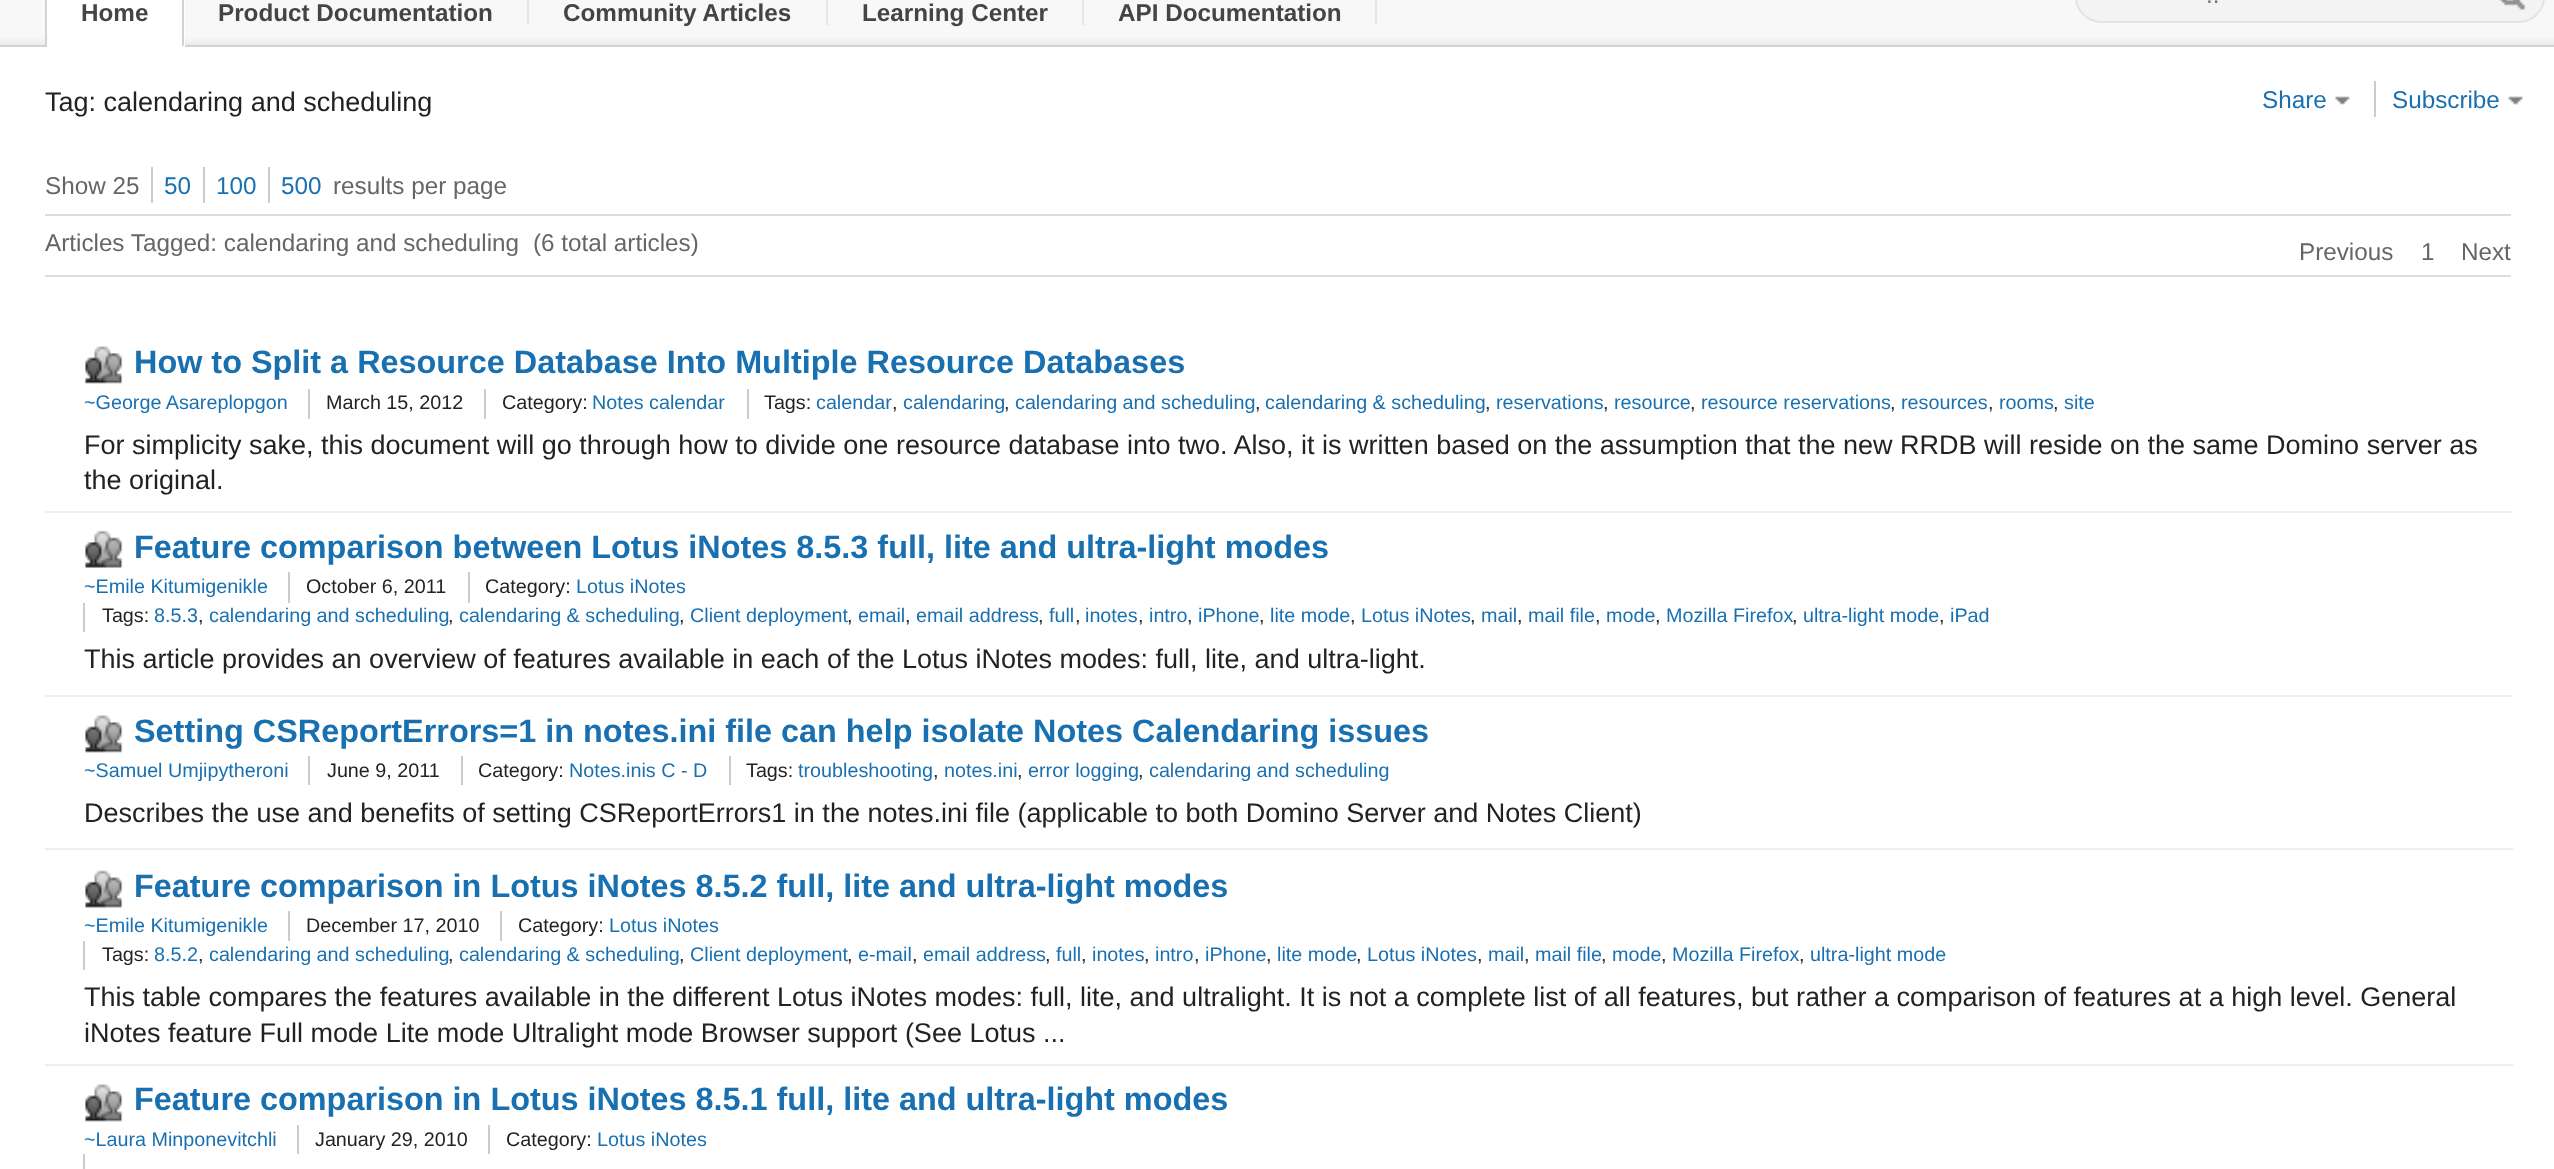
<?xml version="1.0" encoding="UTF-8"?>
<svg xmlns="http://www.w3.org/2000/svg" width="2554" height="1169">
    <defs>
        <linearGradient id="g1" gradientUnits="userSpaceOnUse" x1="0" y1="-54" x2="0" y2="45"><stop offset="0" stop-color="#F8F8F8"/><stop offset="0.92" stop-color="#F8F8F8"/><stop offset="1" stop-color="#EAEAEA"/></linearGradient>
    </defs>
    <rect width="100%" height="100%" fill="#FFFFFF"/>
    <rect x="0" y="0" width="2554" height="45" fill="url(#g1)"/>
    <rect x="0" y="45" width="2554" height="2" fill="#D2D2D2"/>
    <rect x="2076" y="-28" width="468" height="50" rx="26" fill="#F3F3F3" stroke="#E3E3E3" stroke-width="2"/>
    <text x="2206" y="3" font-family="Liberation Sans" font-size="24.25" fill="#757575">..</text>
    <image x="2499" y="0" width="27" height="10" href="img_01.png"/>
    <rect x="47" y="0" width="138" height="45" fill="#FFFFFF"/>
    <rect x="45" y="45" width="140" height="2" fill="#FFFFFF"/>
    <rect x="45" y="0" width="2" height="47" fill="#D2D2D2"/>
    <text x="81" y="21" font-family="Liberation Sans" font-size="24.25" font-weight="700" fill="#444444">Home</text>
    <path d="M 182 47 V -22 L 184 -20 V 45 Z" fill="#D2D2D2"/>
    <text x="218" y="21" font-family="Liberation Sans" font-size="24.25" font-weight="700" fill="#444444">Product Documentation</text>
    <rect x="527" y="0" width="2" height="25" fill="#E5E5E5"/>
    <text x="563" y="21" font-family="Liberation Sans" font-size="24.25" font-weight="700" fill="#444444">Community Articles</text>
    <rect x="826" y="0" width="2" height="25" fill="#E5E5E5"/>
    <text x="862" y="21" font-family="Liberation Sans" font-size="24.25" font-weight="700" fill="#444444">Learning Center</text>
    <rect x="1082" y="0" width="2" height="25" fill="#E5E5E5"/>
    <text x="1118" y="21" font-family="Liberation Sans" font-size="24.25" font-weight="700" fill="#444444">API Documentation</text>
    <rect x="1375" y="0" width="2" height="25" fill="#E5E5E5"/>
    <text x="45" y="111" font-family="Liberation Sans" font-size="27" fill="#222222">Tag: calendaring and scheduling</text>
    <text x="2262" y="108" font-family="Liberation Sans" font-size="24.25" fill="#1970B0">Share</text>
    <image x="2335" y="96" width="15" height="9" href="img_02.png"/>
    <rect x="2374" y="81" width="2" height="36" fill="#CCCCCC"/>
    <text x="2392" y="108" font-family="Liberation Sans" font-size="24.25" fill="#1970B0">Subscribe</text>
    <image x="2508" y="96" width="15" height="9" href="img_03.png"/>
    <text x="45" y="194" font-family="Liberation Sans" font-size="24.25" fill="#666666">Show 25</text>
    <rect x="151" y="167" width="2" height="36" fill="#CCCCCC"/>
    <text x="164" y="194" font-family="Liberation Sans" font-size="24.25" fill="#1970B0">50</text>
    <rect x="203" y="167" width="2" height="36" fill="#CCCCCC"/>
    <text x="216" y="194" font-family="Liberation Sans" font-size="24.25" fill="#1970B0">100</text>
    <rect x="268" y="167" width="2" height="36" fill="#CCCCCC"/>
    <text x="281" y="194" font-family="Liberation Sans" font-size="24.25" fill="#1970B0">500</text>
    <text x="333" y="194" font-family="Liberation Sans" font-size="24.25" fill="#666666">results per page</text>
    <rect x="45" y="214" width="2466" height="2" fill="#DDDDDD"/>
    <rect x="45" y="275" width="2466" height="2" fill="#DDDDDD"/>
    <text x="45" y="251" font-family="Liberation Sans" font-size="24.25" fill="#666666">Articles Tagged: calendaring and scheduling</text>
    <text x="533" y="251" font-family="Liberation Sans" font-size="24.25" fill="#666666">(6 total articles)</text>
    <text x="2299" y="260" font-family="Liberation Sans" font-size="24.25" fill="#666666">Previous</text>
    <text x="2421" y="260" font-family="Liberation Sans" font-size="24.25" fill="#666666">1</text>
    <text x="2461" y="260" font-family="Liberation Sans" font-size="24.25" fill="#666666">Next</text>
    <image x="85" y="346" width="38" height="38" href="img_04.png"/>
    <text x="134" y="373" font-family="Liberation Sans" font-size="32.4" font-weight="700" fill="#1970B0">How to Split a Resource Database Into Multiple Resource Databases</text>
    <text x="84" y="409" font-family="Liberation Sans" font-size="19.75" fill="#1970B0">~George Asareplopgon</text>
    <rect x="308" y="389" width="2" height="30" fill="#CCCCCC"/>
    <text x="326" y="409" font-family="Liberation Sans" font-size="19.75" fill="#222222">March 15, 2012</text>
    <rect x="484" y="389" width="2" height="30" fill="#CCCCCC"/>
    <text x="502" y="409" font-family="Liberation Sans" font-size="19.75" fill="#222222">Category:</text>
    <text x="592" y="409" font-family="Liberation Sans" font-size="19.75" fill="#1970B0">Notes calendar</text>
    <rect x="747" y="389" width="2" height="30" fill="#CCCCCC"/>
    <text x="764" y="409" font-family="Liberation Sans" font-size="19.75" fill="#222222">Tags:</text>
    <text x="816" y="409" font-family="Liberation Sans" font-size="19.75" fill="#1970B0">calendar</text>
    <text x="892" y="409" font-family="Liberation Sans" font-size="19.75" fill="#222222">,</text>
    <text x="903" y="409" font-family="Liberation Sans" font-size="19.75" fill="#1970B0">calendaring</text>
    <text x="1004" y="409" font-family="Liberation Sans" font-size="19.75" fill="#222222">,</text>
    <text x="1015" y="409" font-family="Liberation Sans" font-size="19.75" fill="#1970B0">calendaring and scheduling</text>
    <text x="1255" y="409" font-family="Liberation Sans" font-size="19.75" fill="#222222">,</text>
    <text x="1265" y="409" font-family="Liberation Sans" font-size="19.75" fill="#1970B0">calendaring &amp; scheduling</text>
    <text x="1485" y="409" font-family="Liberation Sans" font-size="19.75" fill="#222222">,</text>
    <text x="1496" y="409" font-family="Liberation Sans" font-size="19.75" fill="#1970B0">reservations</text>
    <text x="1603" y="409" font-family="Liberation Sans" font-size="19.75" fill="#222222">,</text>
    <text x="1614" y="409" font-family="Liberation Sans" font-size="19.75" fill="#1970B0">resource</text>
    <text x="1690" y="409" font-family="Liberation Sans" font-size="19.75" fill="#222222">,</text>
    <text x="1701" y="409" font-family="Liberation Sans" font-size="19.75" fill="#1970B0">resource reservations</text>
    <text x="1890" y="409" font-family="Liberation Sans" font-size="19.75" fill="#222222">,</text>
    <text x="1901" y="409" font-family="Liberation Sans" font-size="19.75" fill="#1970B0">resources</text>
    <text x="1988" y="409" font-family="Liberation Sans" font-size="19.75" fill="#222222">,</text>
    <text x="1999" y="409" font-family="Liberation Sans" font-size="19.75" fill="#1970B0">rooms</text>
    <text x="2053" y="409" font-family="Liberation Sans" font-size="19.75" fill="#222222">,</text>
    <text x="2064" y="409" font-family="Liberation Sans" font-size="19.75" fill="#1970B0">site</text>
    <text font-family="Liberation Sans" font-size="27" fill="#222222">
        <tspan x="84" y="454">For simplicity sake, this document will go through how to divide one resource database into two. Also, it is written based on the assumption that the new RRDB will reside on the same Domino server as</tspan>
        <tspan x="84" y="489">the original.</tspan>
    </text>
    <rect x="45" y="511" width="2468" height="2" fill="#EEEEEE"/>
    <image x="85" y="530" width="38" height="38" href="img_05.png"/>
    <text x="134" y="558" font-family="Liberation Sans" font-size="32.4" font-weight="700" fill="#1970B0">Feature comparison between Lotus iNotes 8.5.3 full, lite and ultra-light modes</text>
    <text x="84" y="593" font-family="Liberation Sans" font-size="19.75" fill="#1970B0">~Emile Kitumigenikle</text>
    <rect x="288" y="572" width="2" height="31" fill="#CCCCCC"/>
    <text x="306" y="593" font-family="Liberation Sans" font-size="19.75" fill="#222222">October 6, 2011</text>
    <rect x="468" y="572" width="2" height="31" fill="#CCCCCC"/>
    <text x="485" y="593" font-family="Liberation Sans" font-size="19.75" fill="#222222">Category:</text>
    <text x="576" y="593" font-family="Liberation Sans" font-size="19.75" fill="#1970B0">Lotus iNotes</text>
    <rect x="83" y="603" width="2" height="29" fill="#CCCCCC"/>
    <text x="102" y="622" font-family="Liberation Sans" font-size="19.75" fill="#222222">Tags:</text>
    <text x="154" y="622" font-family="Liberation Sans" font-size="19.75" fill="#1970B0">8.5.3</text>
    <text x="198" y="622" font-family="Liberation Sans" font-size="19.75" fill="#222222">,</text>
    <text x="209" y="622" font-family="Liberation Sans" font-size="19.75" fill="#1970B0">calendaring and scheduling</text>
    <text x="448" y="622" font-family="Liberation Sans" font-size="19.75" fill="#222222">,</text>
    <text x="459" y="622" font-family="Liberation Sans" font-size="19.75" fill="#1970B0">calendaring &amp; scheduling</text>
    <text x="679" y="622" font-family="Liberation Sans" font-size="19.75" fill="#222222">,</text>
    <text x="690" y="622" font-family="Liberation Sans" font-size="19.75" fill="#1970B0">Client deployment</text>
    <text x="847" y="622" font-family="Liberation Sans" font-size="19.75" fill="#222222">,</text>
    <text x="858" y="622" font-family="Liberation Sans" font-size="19.75" fill="#1970B0">email</text>
    <text x="905" y="622" font-family="Liberation Sans" font-size="19.75" fill="#222222">,</text>
    <text x="916" y="622" font-family="Liberation Sans" font-size="19.75" fill="#1970B0">email address</text>
    <text x="1038" y="622" font-family="Liberation Sans" font-size="19.75" fill="#222222">,</text>
    <text x="1049" y="622" font-family="Liberation Sans" font-size="19.75" fill="#1970B0">full</text>
    <text x="1075" y="622" font-family="Liberation Sans" font-size="19.75" fill="#222222">,</text>
    <text x="1085" y="622" font-family="Liberation Sans" font-size="19.75" fill="#1970B0">inotes</text>
    <text x="1138" y="622" font-family="Liberation Sans" font-size="19.75" fill="#222222">,</text>
    <text x="1149" y="622" font-family="Liberation Sans" font-size="19.75" fill="#1970B0">intro</text>
    <text x="1187" y="622" font-family="Liberation Sans" font-size="19.75" fill="#222222">,</text>
    <text x="1198" y="622" font-family="Liberation Sans" font-size="19.75" fill="#1970B0">iPhone</text>
    <text x="1259" y="622" font-family="Liberation Sans" font-size="19.75" fill="#222222">,</text>
    <text x="1270" y="622" font-family="Liberation Sans" font-size="19.75" fill="#1970B0">lite mode</text>
    <text x="1350" y="622" font-family="Liberation Sans" font-size="19.75" fill="#222222">,</text>
    <text x="1361" y="622" font-family="Liberation Sans" font-size="19.75" fill="#1970B0">Lotus iNotes</text>
    <text x="1470" y="622" font-family="Liberation Sans" font-size="19.75" fill="#222222">,</text>
    <text x="1481" y="622" font-family="Liberation Sans" font-size="19.75" fill="#1970B0">mail</text>
    <text x="1517" y="622" font-family="Liberation Sans" font-size="19.75" fill="#222222">,</text>
    <text x="1528" y="622" font-family="Liberation Sans" font-size="19.75" fill="#1970B0">mail file</text>
    <text x="1595" y="622" font-family="Liberation Sans" font-size="19.75" fill="#222222">,</text>
    <text x="1606" y="622" font-family="Liberation Sans" font-size="19.75" fill="#1970B0">mode</text>
    <text x="1655" y="622" font-family="Liberation Sans" font-size="19.75" fill="#222222">,</text>
    <text x="1666" y="622" font-family="Liberation Sans" font-size="19.75" fill="#1970B0">Mozilla Firefox</text>
    <text x="1792" y="622" font-family="Liberation Sans" font-size="19.75" fill="#222222">,</text>
    <text x="1803" y="622" font-family="Liberation Sans" font-size="19.75" fill="#1970B0">ultra-light mode</text>
    <text x="1939" y="622" font-family="Liberation Sans" font-size="19.75" fill="#222222">,</text>
    <text x="1950" y="622" font-family="Liberation Sans" font-size="19.75" fill="#1970B0">iPad</text>
    <text x="84" y="668" font-family="Liberation Sans" font-size="27" fill="#222222">This article provides an overview of features available in each of the Lotus iNotes modes: full, lite, and ultra-light.</text>
    <rect x="45" y="695" width="2468" height="2" fill="#EEEEEE"/>
    <image x="85" y="715" width="38" height="38" href="img_06.png"/>
    <text x="134" y="742" font-family="Liberation Sans" font-size="32.4" font-weight="700" fill="#1970B0">Setting CSReportErrors=1 in notes.ini file can help isolate Notes Calendaring issues</text>
    <text x="84" y="777" font-family="Liberation Sans" font-size="19.75" fill="#1970B0">~Samuel Umjipytheroni</text>
    <rect x="308" y="756" width="2" height="29" fill="#CCCCCC"/>
    <text x="327" y="777" font-family="Liberation Sans" font-size="19.75" fill="#222222">June 9, 2011</text>
    <rect x="461" y="756" width="2" height="29" fill="#CCCCCC"/>
    <text x="478" y="777" font-family="Liberation Sans" font-size="19.75" fill="#222222">Category:</text>
    <text x="569" y="777" font-family="Liberation Sans" font-size="19.75" fill="#1970B0">Notes.inis C - D</text>
    <rect x="729" y="756" width="2" height="29" fill="#CCCCCC"/>
    <text x="746" y="777" font-family="Liberation Sans" font-size="19.75" fill="#222222">Tags:</text>
    <text x="798" y="777" font-family="Liberation Sans" font-size="19.75" fill="#1970B0">troubleshooting</text>
    <text x="933" y="777" font-family="Liberation Sans" font-size="19.75" fill="#222222">,</text>
    <text x="944" y="777" font-family="Liberation Sans" font-size="19.75" fill="#1970B0">notes.ini</text>
    <text x="1017" y="777" font-family="Liberation Sans" font-size="19.75" fill="#222222">,</text>
    <text x="1028" y="777" font-family="Liberation Sans" font-size="19.75" fill="#1970B0">error logging</text>
    <text x="1138" y="777" font-family="Liberation Sans" font-size="19.75" fill="#222222">,</text>
    <text x="1149" y="777" font-family="Liberation Sans" font-size="19.75" fill="#1970B0">calendaring and scheduling</text>
    <text x="84" y="822" font-family="Liberation Sans" font-size="27" fill="#222222">Describes the use and benefits of setting CSReportErrors1 in the notes.ini file (applicable to both Domino Server and Notes Client)</text>
    <rect x="45" y="848" width="2468" height="2" fill="#EEEEEE"/>
    <image x="85" y="870" width="38" height="38" href="img_07.png"/>
    <text x="134" y="897" font-family="Liberation Sans" font-size="32.4" font-weight="700" fill="#1970B0">Feature comparison in Lotus iNotes 8.5.2 full, lite and ultra-light modes</text>
    <text x="84" y="932" font-family="Liberation Sans" font-size="19.75" fill="#1970B0">~Emile Kitumigenikle</text>
    <rect x="288" y="911" width="2" height="30" fill="#CCCCCC"/>
    <text x="306" y="932" font-family="Liberation Sans" font-size="19.75" fill="#222222">December 17, 2010</text>
    <rect x="500" y="911" width="2" height="30" fill="#CCCCCC"/>
    <text x="518" y="932" font-family="Liberation Sans" font-size="19.75" fill="#222222">Category:</text>
    <text x="609" y="932" font-family="Liberation Sans" font-size="19.75" fill="#1970B0">Lotus iNotes</text>
    <rect x="83" y="941" width="2" height="29" fill="#CCCCCC"/>
    <text x="102" y="961" font-family="Liberation Sans" font-size="19.75" fill="#222222">Tags:</text>
    <text x="154" y="961" font-family="Liberation Sans" font-size="19.75" fill="#1970B0">8.5.2</text>
    <text x="198" y="961" font-family="Liberation Sans" font-size="19.75" fill="#222222">,</text>
    <text x="209" y="961" font-family="Liberation Sans" font-size="19.75" fill="#1970B0">calendaring and scheduling</text>
    <text x="448" y="961" font-family="Liberation Sans" font-size="19.75" fill="#222222">,</text>
    <text x="459" y="961" font-family="Liberation Sans" font-size="19.75" fill="#1970B0">calendaring &amp; scheduling</text>
    <text x="679" y="961" font-family="Liberation Sans" font-size="19.75" fill="#222222">,</text>
    <text x="690" y="961" font-family="Liberation Sans" font-size="19.75" fill="#1970B0">Client deployment</text>
    <text x="847" y="961" font-family="Liberation Sans" font-size="19.75" fill="#222222">,</text>
    <text x="858" y="961" font-family="Liberation Sans" font-size="19.75" fill="#1970B0">e-mail</text>
    <text x="912" y="961" font-family="Liberation Sans" font-size="19.75" fill="#222222">,</text>
    <text x="923" y="961" font-family="Liberation Sans" font-size="19.75" fill="#1970B0">email address</text>
    <text x="1045" y="961" font-family="Liberation Sans" font-size="19.75" fill="#222222">,</text>
    <text x="1056" y="961" font-family="Liberation Sans" font-size="19.75" fill="#1970B0">full</text>
    <text x="1081" y="961" font-family="Liberation Sans" font-size="19.75" fill="#222222">,</text>
    <text x="1092" y="961" font-family="Liberation Sans" font-size="19.75" fill="#1970B0">inotes</text>
    <text x="1144" y="961" font-family="Liberation Sans" font-size="19.75" fill="#222222">,</text>
    <text x="1155" y="961" font-family="Liberation Sans" font-size="19.75" fill="#1970B0">intro</text>
    <text x="1194" y="961" font-family="Liberation Sans" font-size="19.75" fill="#222222">,</text>
    <text x="1205" y="961" font-family="Liberation Sans" font-size="19.75" fill="#1970B0">iPhone</text>
    <text x="1266" y="961" font-family="Liberation Sans" font-size="19.75" fill="#222222">,</text>
    <text x="1277" y="961" font-family="Liberation Sans" font-size="19.75" fill="#1970B0">lite mode</text>
    <text x="1356" y="961" font-family="Liberation Sans" font-size="19.75" fill="#222222">,</text>
    <text x="1367" y="961" font-family="Liberation Sans" font-size="19.75" fill="#1970B0">Lotus iNotes</text>
    <text x="1477" y="961" font-family="Liberation Sans" font-size="19.75" fill="#222222">,</text>
    <text x="1488" y="961" font-family="Liberation Sans" font-size="19.75" fill="#1970B0">mail</text>
    <text x="1524" y="961" font-family="Liberation Sans" font-size="19.75" fill="#222222">,</text>
    <text x="1535" y="961" font-family="Liberation Sans" font-size="19.75" fill="#1970B0">mail file</text>
    <text x="1601" y="961" font-family="Liberation Sans" font-size="19.75" fill="#222222">,</text>
    <text x="1612" y="961" font-family="Liberation Sans" font-size="19.75" fill="#1970B0">mode</text>
    <text x="1661" y="961" font-family="Liberation Sans" font-size="19.75" fill="#222222">,</text>
    <text x="1672" y="961" font-family="Liberation Sans" font-size="19.75" fill="#1970B0">Mozilla Firefox</text>
    <text x="1799" y="961" font-family="Liberation Sans" font-size="19.75" fill="#222222">,</text>
    <text x="1810" y="961" font-family="Liberation Sans" font-size="19.75" fill="#1970B0">ultra-light mode</text>
    <text font-family="Liberation Sans" font-size="27" fill="#222222">
        <tspan x="84" y="1006">This table compares the features available in the different Lotus iNotes modes: full, lite, and ultralight. It is not a complete list of all features, but rather a comparison of features at a high level. General</tspan>
        <tspan x="84" y="1042">iNotes feature Full mode Lite mode Ultralight mode Browser support (See Lotus ...</tspan>
    </text>
    <rect x="45" y="1064" width="2468" height="2" fill="#EEEEEE"/>
    <image x="85" y="1084" width="38" height="38" href="img_08.png"/>
    <text x="134" y="1110" font-family="Liberation Sans" font-size="32.4" font-weight="700" fill="#1970B0">Feature comparison in Lotus iNotes 8.5.1 full, lite and ultra-light modes</text>
    <text x="84" y="1146" font-family="Liberation Sans" font-size="19.75" fill="#1970B0">~Laura Minponevitchli</text>
    <rect x="297" y="1125" width="2" height="29" fill="#CCCCCC"/>
    <text x="315" y="1146" font-family="Liberation Sans" font-size="19.75" fill="#222222">January 29, 2010</text>
    <rect x="488" y="1125" width="2" height="29" fill="#CCCCCC"/>
    <text x="506" y="1146" font-family="Liberation Sans" font-size="19.75" fill="#222222">Category:</text>
    <text x="597" y="1146" font-family="Liberation Sans" font-size="19.75" fill="#1970B0">Lotus iNotes</text>
    <rect x="83" y="1154" width="2" height="15" fill="#CCCCCC"/>
</svg>
